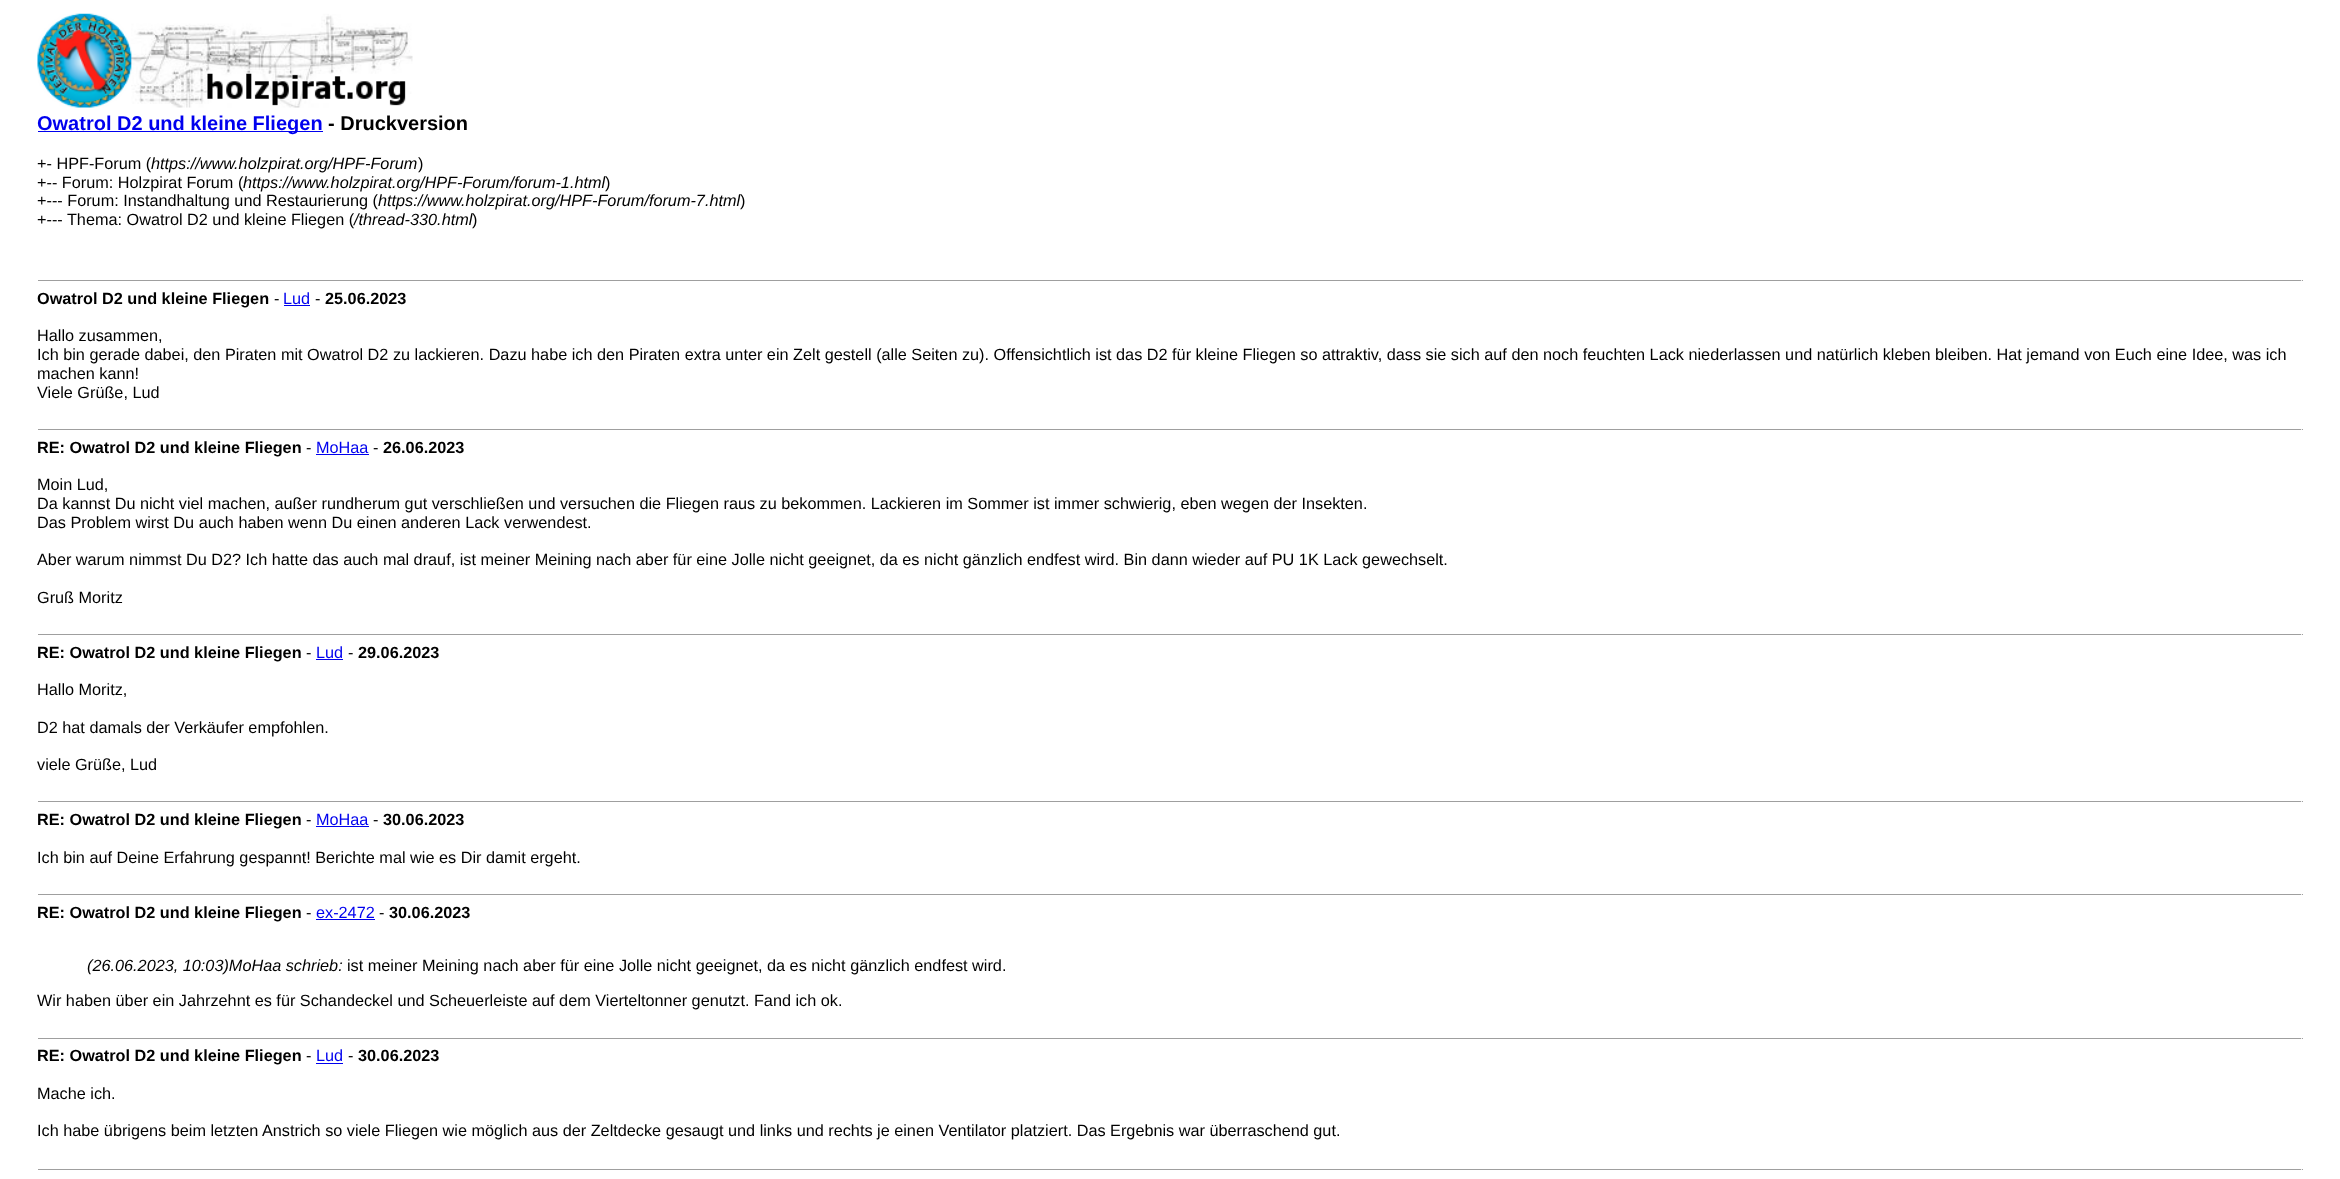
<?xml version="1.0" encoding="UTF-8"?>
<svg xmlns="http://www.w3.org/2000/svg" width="2340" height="1179">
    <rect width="100%" height="100%" fill="#FFFFFF"/>
    <image x="37" y="13" width="376" height="95" href="img_01.png"/>
    <rect x="38" y="131" width="285" height="1" fill="#0000EE"/>
    <text x="37" y="130" font-family="Liberation Sans" font-size="20" font-weight="700" fill="#0000EE">Owatrol D2 und kleine Fliegen</text>
    <text x="328" y="130" font-family="Liberation Sans" font-size="20" font-weight="700" fill="#000000">- Druckversion</text>
    <text x="37" y="169" font-family="Liberation Sans" font-size="16.25" fill="#000000">+- HPF-Forum (</text>
    <text x="151" y="169" font-family="Liberation Sans" font-size="16.25" font-style="italic" fill="#000000">https://www.holzpirat.org/HPF-Forum</text>
    <text x="418" y="169" font-family="Liberation Sans" font-size="16.25" fill="#000000">)</text>
    <text x="37" y="188" font-family="Liberation Sans" font-size="16.25" fill="#000000">+-- Forum: Holzpirat Forum (</text>
    <text x="243" y="188" font-family="Liberation Sans" font-size="16.25" font-style="italic" fill="#000000">https://www.holzpirat.org/HPF-Forum/forum-1.html</text>
    <text x="605" y="188" font-family="Liberation Sans" font-size="16.25" fill="#000000">)</text>
    <text x="37" y="206" font-family="Liberation Sans" font-size="16.25" fill="#000000">+--- Forum: Instandhaltung und Restaurierung (</text>
    <text x="378" y="206" font-family="Liberation Sans" font-size="16.25" font-style="italic" fill="#000000">https://www.holzpirat.org/HPF-Forum/forum-7.html</text>
    <text x="740" y="206" font-family="Liberation Sans" font-size="16.25" fill="#000000">)</text>
    <text x="37" y="225" font-family="Liberation Sans" font-size="16.25" fill="#000000">+--- Thema: Owatrol D2 und kleine Fliegen (</text>
    <text x="354" y="225" font-family="Liberation Sans" font-size="16.25" font-style="italic" fill="#000000">/thread-330.html</text>
    <text x="472" y="225" font-family="Liberation Sans" font-size="16.25" fill="#000000">)</text>
    <rect x="38" y="280" width="2265" height="1" fill="#9F9F9F"/>
    <rect x="2301" y="280" width="1" height="1" fill="#EEEEEE"/>
    <text x="37" y="304" font-family="Liberation Sans" font-size="16.25" font-weight="700" fill="#000000">Owatrol D2 und kleine Fliegen</text>
    <text x="274" y="304" font-family="Liberation Sans" font-size="16.25" fill="#000000">-</text>
    <text x="283" y="304" font-family="Liberation Sans" font-size="16.25" fill="#0000EE">Lud</text>
    <rect x="284" y="305" width="26" height="1" fill="#0000EE"/>
    <text x="315" y="304" font-family="Liberation Sans" font-size="16.25" fill="#000000">-</text>
    <text x="325" y="304" font-family="Liberation Sans" font-size="16.25" font-weight="700" fill="#000000">25.06.2023</text>
    <text font-family="Liberation Sans" font-size="16.25" fill="#000000">
        <tspan x="37" y="341">Hallo zusammen,</tspan>
        <tspan x="37" y="360">Ich bin gerade dabei, den Piraten mit Owatrol D2 zu lackieren. Dazu habe ich den Piraten extra unter ein Zelt gestell (alle Seiten zu). Offensichtlich ist das D2 für kleine Fliegen so attraktiv, dass sie sich auf den noch feuchten Lack niederlassen und natürlich kleben bleiben. Hat jemand von Euch eine Idee, was ich</tspan>
        <tspan x="37" y="379">machen kann!</tspan>
        <tspan x="37" y="398">Viele Grüße, Lud</tspan>
    </text>
    <rect x="38" y="429" width="2265" height="1" fill="#9F9F9F"/>
    <rect x="2301" y="429" width="1" height="1" fill="#EEEEEE"/>
    <text x="37" y="453" font-family="Liberation Sans" font-size="16.25" font-weight="700" fill="#000000">RE: Owatrol D2 und kleine Fliegen</text>
    <text x="306" y="453" font-family="Liberation Sans" font-size="16.25" fill="#000000">-</text>
    <text x="316" y="453" font-family="Liberation Sans" font-size="16.25" fill="#0000EE">MoHaa</text>
    <rect x="316" y="454" width="53" height="1" fill="#0000EE"/>
    <text x="373" y="453" font-family="Liberation Sans" font-size="16.25" fill="#000000">-</text>
    <text x="383" y="453" font-family="Liberation Sans" font-size="16.25" font-weight="700" fill="#000000">26.06.2023</text>
    <text font-family="Liberation Sans" font-size="16.25" fill="#000000">
        <tspan x="37" y="490">Moin Lud,</tspan>
        <tspan x="37" y="509">Da kannst Du nicht viel machen, außer rundherum gut verschließen und versuchen die Fliegen raus zu bekommen. Lackieren im Sommer ist immer schwierig, eben wegen der Insekten.</tspan>
        <tspan x="37" y="528">Das Problem wirst Du auch haben wenn Du einen anderen Lack verwendest.</tspan>
    </text>
    <text x="37" y="565" font-family="Liberation Sans" font-size="16.25" fill="#000000">Aber warum nimmst Du D2? Ich hatte das auch mal drauf, ist meiner Meining nach aber für eine Jolle nicht geeignet, da es nicht gänzlich endfest wird. Bin dann wieder auf PU 1K Lack gewechselt.</text>
    <text x="37" y="603" font-family="Liberation Sans" font-size="16.25" fill="#000000">Gruß Moritz</text>
    <rect x="38" y="634" width="2265" height="1" fill="#9F9F9F"/>
    <rect x="2301" y="634" width="1" height="1" fill="#EEEEEE"/>
    <text x="37" y="658" font-family="Liberation Sans" font-size="16.25" font-weight="700" fill="#000000">RE: Owatrol D2 und kleine Fliegen</text>
    <text x="306" y="658" font-family="Liberation Sans" font-size="16.25" fill="#000000">-</text>
    <text x="316" y="658" font-family="Liberation Sans" font-size="16.25" fill="#0000EE">Lud</text>
    <rect x="316" y="659" width="27" height="1" fill="#0000EE"/>
    <text x="348" y="658" font-family="Liberation Sans" font-size="16.25" fill="#000000">-</text>
    <text x="358" y="658" font-family="Liberation Sans" font-size="16.25" font-weight="700" fill="#000000">29.06.2023</text>
    <text x="37" y="695" font-family="Liberation Sans" font-size="16.25" fill="#000000">Hallo Moritz,</text>
    <text x="37" y="733" font-family="Liberation Sans" font-size="16.25" fill="#000000">D2 hat damals der Verkäufer empfohlen.</text>
    <text x="37" y="770" font-family="Liberation Sans" font-size="16.25" fill="#000000">viele Grüße, Lud</text>
    <rect x="38" y="801" width="2265" height="1" fill="#9F9F9F"/>
    <rect x="2301" y="801" width="1" height="1" fill="#EEEEEE"/>
    <text x="37" y="825" font-family="Liberation Sans" font-size="16.25" font-weight="700" fill="#000000">RE: Owatrol D2 und kleine Fliegen</text>
    <text x="306" y="825" font-family="Liberation Sans" font-size="16.25" fill="#000000">-</text>
    <text x="316" y="825" font-family="Liberation Sans" font-size="16.25" fill="#0000EE">MoHaa</text>
    <rect x="316" y="826" width="53" height="1" fill="#0000EE"/>
    <text x="373" y="825" font-family="Liberation Sans" font-size="16.25" fill="#000000">-</text>
    <text x="383" y="825" font-family="Liberation Sans" font-size="16.25" font-weight="700" fill="#000000">30.06.2023</text>
    <text x="37" y="863" font-family="Liberation Sans" font-size="16.25" fill="#000000">Ich bin auf Deine Erfahrung gespannt! Berichte mal wie es Dir damit ergeht.</text>
    <rect x="38" y="894" width="2265" height="1" fill="#9F9F9F"/>
    <rect x="2301" y="894" width="1" height="1" fill="#EEEEEE"/>
    <text x="37" y="918" font-family="Liberation Sans" font-size="16.25" font-weight="700" fill="#000000">RE: Owatrol D2 und kleine Fliegen</text>
    <text x="306" y="918" font-family="Liberation Sans" font-size="16.25" fill="#000000">-</text>
    <text x="316" y="918" font-family="Liberation Sans" font-size="16.25" fill="#0000EE">ex-2472</text>
    <rect x="316" y="919" width="59" height="1" fill="#0000EE"/>
    <text x="379" y="918" font-family="Liberation Sans" font-size="16.25" fill="#000000">-</text>
    <text x="389" y="918" font-family="Liberation Sans" font-size="16.25" font-weight="700" fill="#000000">30.06.2023</text>
    <text x="87" y="971" font-family="Liberation Sans" font-size="16.25" font-style="italic" fill="#000000">(26.06.2023, 10:03)MoHaa schrieb:</text>
    <text x="347" y="971" font-family="Liberation Sans" font-size="16.25" fill="#000000">ist meiner Meining nach aber für eine Jolle nicht geeignet, da es nicht gänzlich endfest wird.</text>
    <text x="37" y="1006" font-family="Liberation Sans" font-size="16.25" fill="#000000">Wir haben über ein Jahrzehnt es für Schandeckel und Scheuerleiste auf dem Vierteltonner genutzt. Fand ich ok.</text>
    <rect x="38" y="1038" width="2265" height="1" fill="#9F9F9F"/>
    <rect x="2301" y="1038" width="1" height="1" fill="#EEEEEE"/>
    <text x="37" y="1061" font-family="Liberation Sans" font-size="16.25" font-weight="700" fill="#000000">RE: Owatrol D2 und kleine Fliegen</text>
    <text x="306" y="1061" font-family="Liberation Sans" font-size="16.25" fill="#000000">-</text>
    <text x="316" y="1061" font-family="Liberation Sans" font-size="16.25" fill="#0000EE">Lud</text>
    <rect x="316" y="1063" width="27" height="1" fill="#0000EE"/>
    <text x="348" y="1061" font-family="Liberation Sans" font-size="16.25" fill="#000000">-</text>
    <text x="358" y="1061" font-family="Liberation Sans" font-size="16.25" font-weight="700" fill="#000000">30.06.2023</text>
    <text x="37" y="1099" font-family="Liberation Sans" font-size="16.25" fill="#000000">Mache ich.</text>
    <text x="37" y="1136" font-family="Liberation Sans" font-size="16.25" fill="#000000">Ich habe übrigens beim letzten Anstrich so viele Fliegen wie möglich aus der Zeltdecke gesaugt und links und rechts je einen Ventilator platziert. Das Ergebnis war überraschend gut.</text>
    <rect x="38" y="1169" width="2265" height="1" fill="#9F9F9F"/>
    <rect x="2301" y="1169" width="1" height="1" fill="#EEEEEE"/>
</svg>
